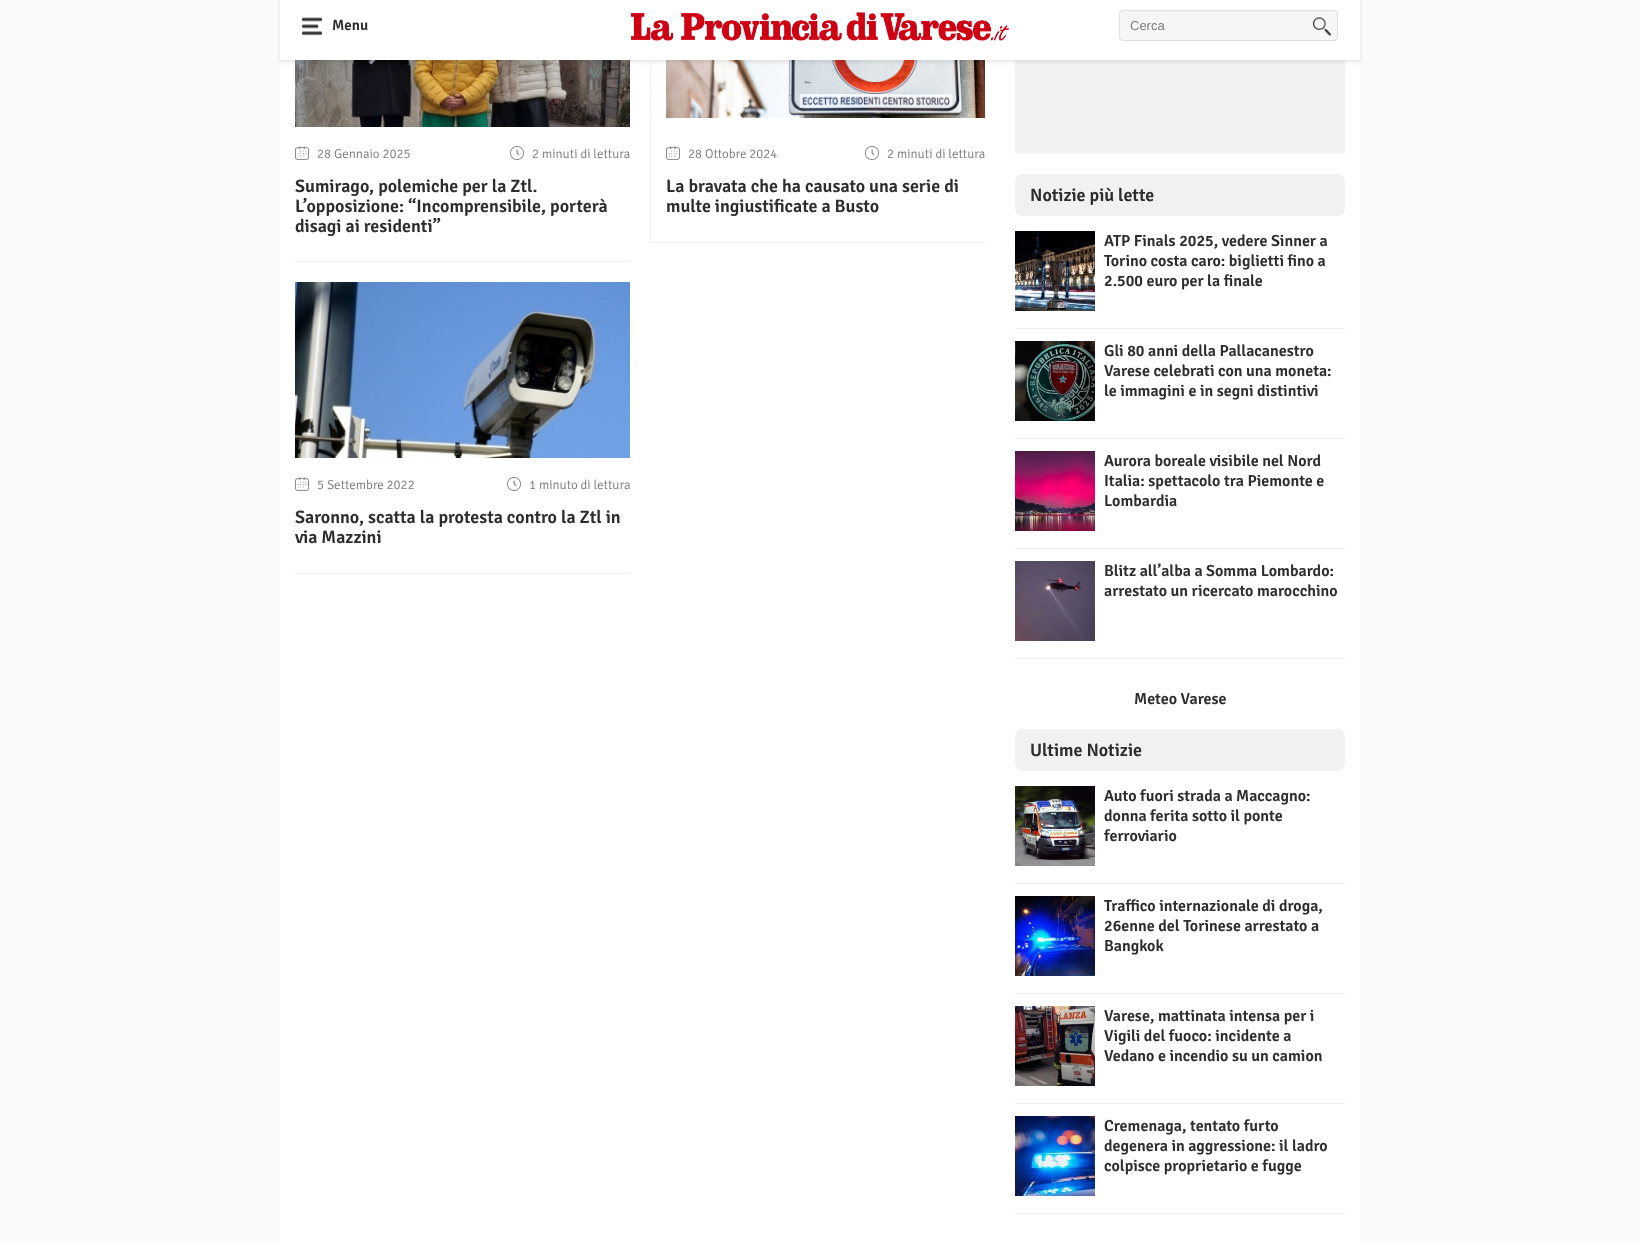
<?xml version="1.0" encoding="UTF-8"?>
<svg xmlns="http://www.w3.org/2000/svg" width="1640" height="1241">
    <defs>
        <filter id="blur1" x="-50%" y="-200%" width="200%" height="500%"><feGaussianBlur stdDeviation="2"/></filter>
    </defs>
    <rect width="100%" height="100%" fill="#FAFAFA"/>
    <rect x="280" y="60" width="1080" height="1181" fill="#FFFFFF"/>
    <image x="295" y="60" width="335" height="67" href="img_04.png"/>
    <rect x="650" y="242" width="335" height="1" fill="#F2F2F2"/>
    <rect x="650" y="60" width="1" height="183" fill="#F2F2F2"/>
    <image x="666" y="60" width="319" height="58" href="img_07.png"/>
    <rect x="1015" y="60" width="330" height="94" fill="#F2F2F2"/>
    <rect x="280" y="-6" width="1080" height="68" fill="#000000" fill-opacity="0.1" filter="url(#blur1)"/>
    <rect x="280" y="0" width="1080" height="60" fill="#FFFFFF"/>
    <image x="302" y="17" width="20" height="19" href="img_01.png"/>
    <text x="332" y="30" font-family="Signika" font-size="15" font-weight="600" fill="#2D2D2D">Menu</text>
    <image x="631" y="12" width="378" height="29" href="img_02.png"/>
    <rect x="1119.5" y="10.5" width="218" height="30" rx="3.5" fill="#F6F6F6" stroke="#DEDEDE"/>
    <text x="1130" y="30" font-family="Liberation Sans" font-size="13" fill="#7A7A7A">Cerca</text>
    <image x="1313" y="17" width="18" height="19" href="img_03.png"/>
    <rect x="295" y="261" width="335" height="1" fill="#F2F2F2"/>
    <image x="295" y="146" width="14" height="14" href="img_05.png"/>
    <text x="317" y="158" font-family="Signika" font-size="13" font-weight="300" fill="#7A7A7A">28 Gennaio 2025</text>
    <image x="510" y="146" width="14" height="14" href="img_06.png"/>
    <text x="532" y="158" font-family="Signika" font-size="13" font-weight="300" fill="#7A7A7A">2 minuti di lettura</text>
    <text font-family="Signika" font-size="18" font-weight="600" fill="#2D2D2D">
        <tspan x="295" y="192">Sumirago, polemiche per la Ztl.</tspan>
        <tspan x="295" y="212">L’opposizione: “Incomprensibile, porterà</tspan>
        <tspan x="295" y="232">disagi ai residenti”</tspan>
    </text>
    <image x="666" y="146" width="14" height="14" href="img_05.png"/>
    <text x="688" y="158" font-family="Signika" font-size="13" font-weight="300" fill="#7A7A7A">28 Ottobre 2024</text>
    <image x="865" y="146" width="14" height="14" href="img_06.png"/>
    <text x="887" y="158" font-family="Signika" font-size="13" font-weight="300" fill="#7A7A7A">2 minuti di lettura</text>
    <text font-family="Signika" font-size="18" font-weight="600" fill="#2D2D2D">
        <tspan x="666" y="192">La bravata che ha causato una serie di</tspan>
        <tspan x="666" y="212">multe ingiustificate a Busto</tspan>
    </text>
    <rect x="295" y="573" width="335" height="1" fill="#F2F2F2"/>
    <image x="295" y="282" width="335" height="176" href="img_08.png"/>
    <image x="295" y="477" width="14" height="14" href="img_05.png"/>
    <text x="317" y="489" font-family="Signika" font-size="13" font-weight="300" fill="#7A7A7A">5 Settembre 2022</text>
    <image x="507" y="477" width="14" height="14" href="img_06.png"/>
    <text x="529" y="489" font-family="Signika" font-size="13" font-weight="300" fill="#7A7A7A">1 minuto di lettura</text>
    <text font-family="Signika" font-size="18" font-weight="600" fill="#2D2D2D">
        <tspan x="295" y="523">Saronno, scatta la protesta contro la Ztl in</tspan>
        <tspan x="295" y="543">via Mazzini</tspan>
    </text>
    <rect x="1015" y="174" width="330" height="42" rx="8" fill="#F1F1F1"/>
    <text x="1030" y="201" font-family="Signika" font-size="18" font-weight="600" fill="#2D2D2D">Notizie più lette</text>
    <rect x="1015" y="328" width="330" height="1" fill="#EFEFEF"/>
    <image x="1015" y="231" width="80" height="80" href="img_09.png"/>
    <text font-family="Signika" font-size="16" font-weight="600" fill="#2D2D2D">
        <tspan x="1104" y="246">ATP Finals 2025, vedere Sinner a</tspan>
        <tspan x="1104" y="266">Torino costa caro: biglietti fino a</tspan>
        <tspan x="1104" y="286">2.500 euro per la finale</tspan>
    </text>
    <rect x="1015" y="438" width="330" height="1" fill="#EFEFEF"/>
    <image x="1015" y="341" width="80" height="80" href="img_10.png"/>
    <text font-family="Signika" font-size="16" font-weight="600" fill="#2D2D2D">
        <tspan x="1104" y="356">Gli 80 anni della Pallacanestro</tspan>
        <tspan x="1104" y="376">Varese celebrati con una moneta:</tspan>
        <tspan x="1104" y="396">le immagini e in segni distintivi</tspan>
    </text>
    <rect x="1015" y="548" width="330" height="1" fill="#EFEFEF"/>
    <image x="1015" y="451" width="80" height="80" href="img_11.png"/>
    <text font-family="Signika" font-size="16" font-weight="600" fill="#2D2D2D">
        <tspan x="1104" y="466">Aurora boreale visibile nel Nord</tspan>
        <tspan x="1104" y="486">Italia: spettacolo tra Piemonte e</tspan>
        <tspan x="1104" y="506">Lombardia</tspan>
    </text>
    <rect x="1015" y="658" width="330" height="1" fill="#EFEFEF"/>
    <image x="1015" y="561" width="80" height="80" href="img_12.png"/>
    <text font-family="Signika" font-size="16" font-weight="600" fill="#2D2D2D">
        <tspan x="1104" y="576">Blitz all’alba a Somma Lombardo:</tspan>
        <tspan x="1104" y="596">arrestato un ricercato marocchino</tspan>
    </text>
    <text x="1134" y="704" font-family="Signika" font-size="16" font-weight="600" fill="#2D2D2D">Meteo Varese</text>
    <rect x="1015" y="729" width="330" height="42" rx="8" fill="#F1F1F1"/>
    <text x="1030" y="756" font-family="Signika" font-size="18" font-weight="600" fill="#2D2D2D">Ultime Notizie</text>
    <rect x="1015" y="883" width="330" height="1" fill="#EFEFEF"/>
    <image x="1015" y="786" width="80" height="80" href="img_13.png"/>
    <text font-family="Signika" font-size="16" font-weight="600" fill="#2D2D2D">
        <tspan x="1104" y="801">Auto fuori strada a Maccagno:</tspan>
        <tspan x="1104" y="821">donna ferita sotto il ponte</tspan>
        <tspan x="1104" y="841">ferroviario</tspan>
    </text>
    <rect x="1015" y="993" width="330" height="1" fill="#EFEFEF"/>
    <image x="1015" y="896" width="80" height="80" href="img_14.png"/>
    <text font-family="Signika" font-size="16" font-weight="600" fill="#2D2D2D">
        <tspan x="1104" y="911">Traffico internazionale di droga,</tspan>
        <tspan x="1104" y="931">26enne del Torinese arrestato a</tspan>
        <tspan x="1104" y="951">Bangkok</tspan>
    </text>
    <rect x="1015" y="1103" width="330" height="1" fill="#EFEFEF"/>
    <image x="1015" y="1006" width="80" height="80" href="img_15.png"/>
    <text font-family="Signika" font-size="16" font-weight="600" fill="#2D2D2D">
        <tspan x="1104" y="1021">Varese, mattinata intensa per i</tspan>
        <tspan x="1104" y="1041">Vigili del fuoco: incidente a</tspan>
        <tspan x="1104" y="1061">Vedano e incendio su un camion</tspan>
    </text>
    <rect x="1015" y="1213" width="330" height="1" fill="#EFEFEF"/>
    <image x="1015" y="1116" width="80" height="80" href="img_16.png"/>
    <text font-family="Signika" font-size="16" font-weight="600" fill="#2D2D2D">
        <tspan x="1104" y="1131">Cremenaga, tentato furto</tspan>
        <tspan x="1104" y="1151">degenera in aggressione: il ladro</tspan>
        <tspan x="1104" y="1171">colpisce proprietario e fugge</tspan>
    </text>
</svg>
